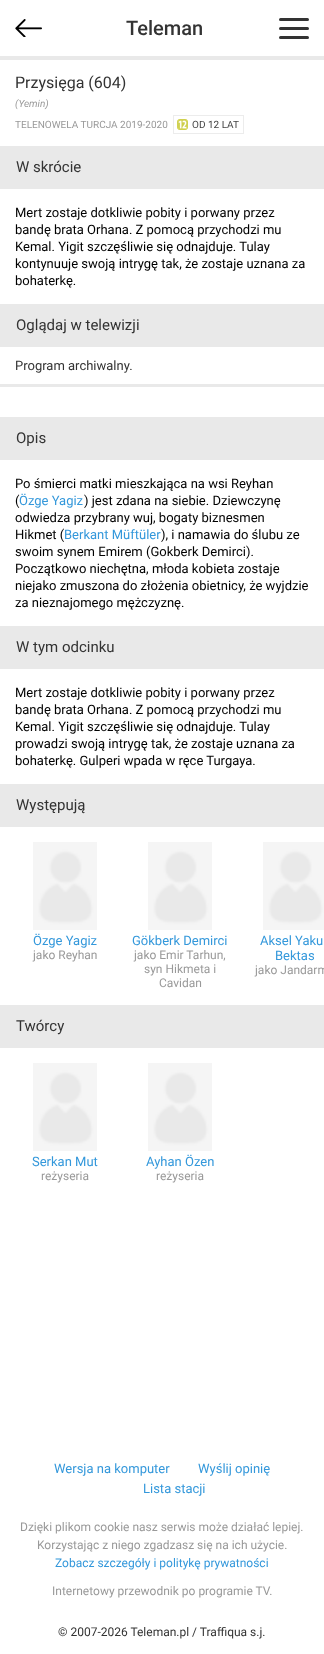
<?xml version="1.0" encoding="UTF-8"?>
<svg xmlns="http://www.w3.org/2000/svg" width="324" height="1654">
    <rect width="100%" height="100%" fill="#FFFFFF"/>
    <image x="15" y="19" width="27" height="18" href="img_01.png"/>
    <text x="126" y="35" font-family="Roboto" font-size="20" font-weight="500" fill="#333333">Teleman</text>
    <rect x="279" y="18" width="30" height="3" rx="1.5" fill="#333333"/>
    <rect x="279" y="27" width="30" height="3" rx="1.5" fill="#333333"/>
    <rect x="279" y="36" width="30" height="3" rx="1.5" fill="#333333"/>
    <rect x="0" y="56" width="324" height="4" fill="#E9E9E9"/>
    <text x="15" y="88" font-family="Roboto" font-size="16" fill="#333333">Przysięga (604)</text>
    <text x="15" y="107" font-family="Roboto" font-size="10" font-style="italic" fill="#999999">(Yemin)</text>
    <text x="15" y="128" font-family="Roboto" font-size="10" fill="#999999">TELENOWELA TURCJA 2019-2020</text>
    <image x="177" y="119" width="11" height="11" href="img_02.png"/>
    <rect x="173.5" y="115.5" width="70" height="18" fill="none" stroke="#ECECEC"/>
    <text x="192" y="128" font-family="Roboto" font-size="10" fill="#444444">OD 12 LAT</text>
    <rect x="0" y="146" width="324" height="43" fill="#E9E9E9"/>
    <text x="16" y="172" font-family="Roboto" font-size="15" fill="#333333">W skrócie</text>
    <text font-family="Roboto" font-size="13" fill="#000000">
        <tspan x="15" y="217">Mert zostaje dotkliwie pobity i porwany przez</tspan>
        <tspan x="15" y="234">bandę brata Orhana. Z pomocą przychodzi mu</tspan>
        <tspan x="15" y="251">Kemal. Yigit szczęśliwie się odnajduje. Tulay</tspan>
        <tspan x="15" y="268">kontynuuje swoją intrygę tak, że zostaje uznana za</tspan>
        <tspan x="15" y="285">bohaterkę.</tspan>
    </text>
    <rect x="0" y="304" width="324" height="43" fill="#E9E9E9"/>
    <text x="16" y="330" font-family="Roboto" font-size="15" fill="#333333">Oglądaj w telewizji</text>
    <rect x="0" y="384" width="324" height="3" fill="#E9E9E9"/>
    <text x="15" y="370" font-family="Roboto" font-size="13" fill="#333333">Program archiwalny.</text>
    <rect x="0" y="417" width="324" height="43" fill="#E9E9E9"/>
    <text x="16" y="443" font-family="Roboto" font-size="15" fill="#333333">Opis</text>
    <text font-family="Roboto" font-size="13" fill="#000000">
        <tspan x="15" y="488">Po śmierci matki mieszkająca na wsi Reyhan</tspan>
        <tspan x="15" y="505">(</tspan>
    </text>
    <text x="19" y="505" font-family="Roboto" font-size="13" fill="#3498DB">Özge Yagiz</text>
    <text x="84" y="505" font-family="Roboto" font-size="13" fill="#000000">) jest zdana na siebie. Dziewczynę</text>
    <text font-family="Roboto" font-size="13" fill="#000000">
        <tspan x="15" y="522">odwiedza przybrany wuj, bogaty biznesmen</tspan>
        <tspan x="15" y="539">Hikmet (</tspan>
    </text>
    <text x="64" y="539" font-family="Roboto" font-size="13" fill="#3498DB">Berkant Müftüler</text>
    <text x="161" y="539" font-family="Roboto" font-size="13" fill="#000000">), i namawia do ślubu ze</text>
    <text font-family="Roboto" font-size="13" fill="#000000">
        <tspan x="15" y="556">swoim synem Emirem (Gokberk Demirci).</tspan>
        <tspan x="15" y="573">Początkowo niechętna, młoda kobieta zostaje</tspan>
        <tspan x="15" y="590">niejako zmuszona do złożenia obietnicy, że wyjdzie</tspan>
        <tspan x="15" y="607">za nieznajomego mężczyznę.</tspan>
    </text>
    <rect x="0" y="626" width="324" height="43" fill="#E9E9E9"/>
    <text x="16" y="652" font-family="Roboto" font-size="15" fill="#333333">W tym odcinku</text>
    <text font-family="Roboto" font-size="13" fill="#000000">
        <tspan x="15" y="697">Mert zostaje dotkliwie pobity i porwany przez</tspan>
        <tspan x="15" y="714">bandę brata Orhana. Z pomocą przychodzi mu</tspan>
        <tspan x="15" y="731">Kemal. Yigit szczęśliwie się odnajduje. Tulay</tspan>
        <tspan x="15" y="748">prowadzi swoją intrygę tak, że zostaje uznana za</tspan>
        <tspan x="15" y="765">bohaterkę. Gulperi wpada w ręce Turgaya.</tspan>
    </text>
    <rect x="0" y="784" width="324" height="43" fill="#E9E9E9"/>
    <text x="16" y="810" font-family="Roboto" font-size="15" fill="#333333">Występują</text>
    <image x="33" y="842" width="64" height="88" href="img_03.png"/>
    <text x="33" y="945" font-family="Roboto" font-size="13" fill="#3498DB">Özge Yagiz</text>
    <text x="33" y="959" font-family="Roboto" font-size="12" fill="#999999">jako Reyhan</text>
    <image x="148" y="842" width="64" height="88" href="img_03.png"/>
    <text x="132" y="945" font-family="Roboto" font-size="13" fill="#3498DB">Gökberk Demirci</text>
    <text x="134" y="959" font-family="Roboto" font-size="12" fill="#999999">jako Emir Tarhun,</text>
    <text x="144" y="973" font-family="Roboto" font-size="12" fill="#999999">syn Hikmeta i</text>
    <text x="159" y="987" font-family="Roboto" font-size="12" fill="#999999">Cavidan</text>
    <image x="263" y="842" width="61" height="88" href="img_04.png"/>
    <text x="260" y="945" font-family="Roboto" font-size="13" fill="#3498DB">Aksel Yaku</text>
    <text x="275" y="960" font-family="Roboto" font-size="13" fill="#3498DB">Bektas</text>
    <text x="255" y="974" font-family="Roboto" font-size="12" fill="#999999">jako Jandarm</text>
    <rect x="0" y="1005" width="324" height="43" fill="#E9E9E9"/>
    <text x="16" y="1031" font-family="Roboto" font-size="15" fill="#333333">Twórcy</text>
    <image x="33" y="1063" width="64" height="88" href="img_03.png"/>
    <text x="32" y="1166" font-family="Roboto" font-size="13" fill="#3498DB">Serkan Mut</text>
    <text x="41" y="1180" font-family="Roboto" font-size="12" fill="#999999">reżyseria</text>
    <image x="148" y="1063" width="64" height="88" href="img_03.png"/>
    <text x="146" y="1166" font-family="Roboto" font-size="13" fill="#3498DB">Ayhan Özen</text>
    <text x="156" y="1180" font-family="Roboto" font-size="12" fill="#999999">reżyseria</text>
    <text x="54" y="1473" font-family="Roboto" font-size="13" fill="#3498DB">Wersja na komputer</text>
    <text x="198" y="1473" font-family="Roboto" font-size="13" fill="#3498DB">Wyślij opinię</text>
    <text x="143" y="1493" font-family="Roboto" font-size="13" fill="#3498DB">Lista stacji</text>
    <text x="20" y="1531" font-family="Roboto" font-size="12" fill="#999999">Dzięki plikom cookie nasz serwis może działać lepiej.</text>
    <text x="37" y="1549" font-family="Roboto" font-size="12" fill="#999999">Korzystając z niego zgadzasz się na ich użycie.</text>
    <text x="55" y="1567" font-family="Roboto" font-size="12" fill="#3498DB">Zobacz szczegóły i politykę prywatności</text>
    <text x="52" y="1595" font-family="Roboto" font-size="12" fill="#999999">Internetowy przewodnik po programie TV.</text>
    <text x="58" y="1636" font-family="Roboto" font-size="12" fill="#333333">© 2007-2026 Teleman.pl / Traffiqua s.j.</text>
</svg>
